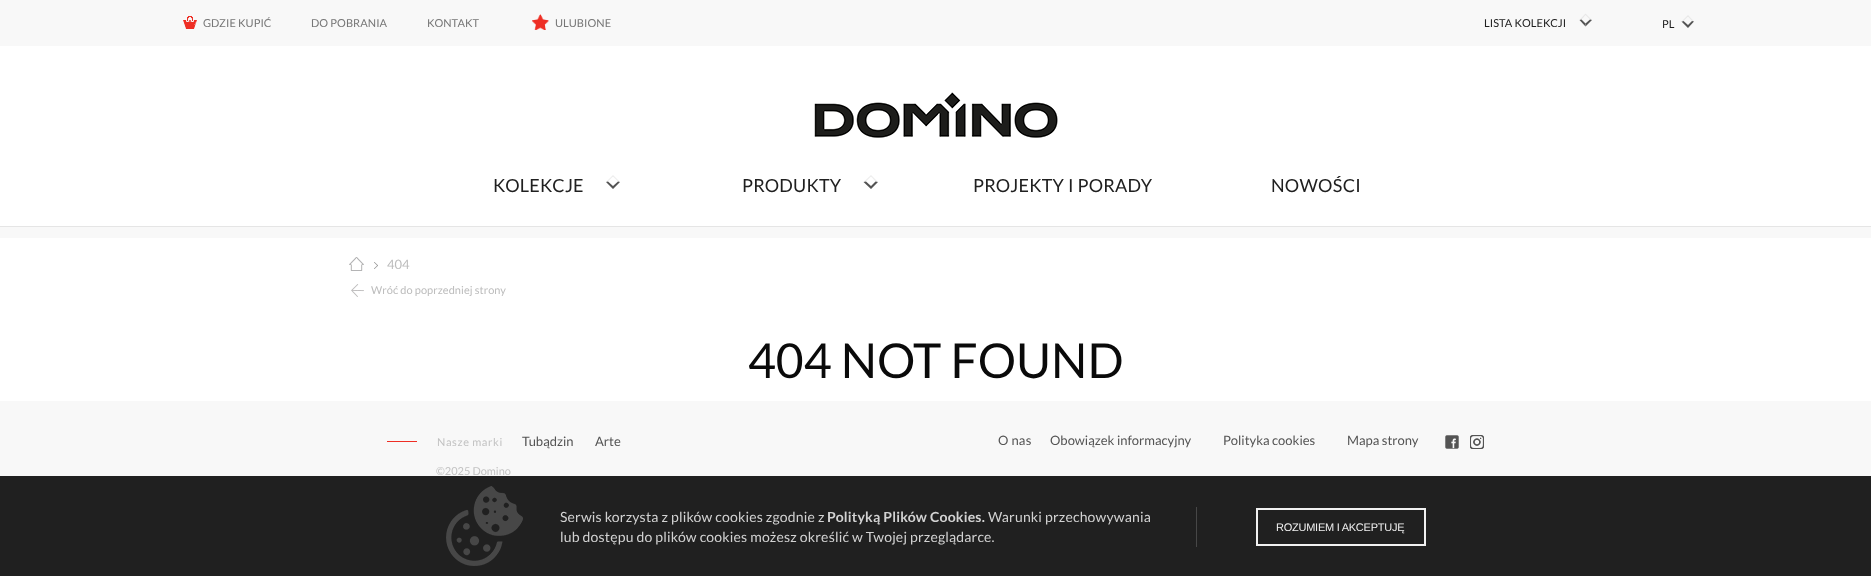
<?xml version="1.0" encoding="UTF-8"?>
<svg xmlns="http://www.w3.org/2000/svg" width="1871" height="576">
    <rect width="100%" height="100%" fill="#FFFFFF"/>
    <rect x="0" y="0" width="1871" height="46" fill="#F8F8F8"/>
    <image x="183" y="16" width="14" height="13" href="img_01.png"/>
    <text x="203" y="27" font-family="Lato" font-size="11" letter-spacing="0.05" fill="#767676">GDZIE KUPIĆ</text>
    <text x="311" y="27" font-family="Lato" font-size="11" letter-spacing="0.05" fill="#767676">DO POBRANIA</text>
    <text x="427" y="27" font-family="Lato" font-size="11" letter-spacing="0.05" fill="#767676">KONTAKT</text>
    <image x="532" y="14" width="17" height="16" href="img_02.png"/>
    <text x="555" y="27" font-family="Lato" font-size="11" letter-spacing="0.05" fill="#767676">ULUBIONE</text>
    <text x="1484" y="27" font-family="Lato" font-size="11" letter-spacing="0.05" fill="#202020">LISTA KOLEKCJI</text>
    <path d="M 1585.5 13.5 L 1592 20 L 1590 19.5 L 1585.5 15 Z" fill="#E8E8E8"/>
    <path d="M 1592 20 L 1585.5 26.5 V 23.5 L 1590 19.5 Z" fill="#545454"/>
    <path d="M 1585.5 26.5 L 1579.5 20 L 1581.5 19.5 L 1585.5 23.5 Z" fill="#545454"/>
    <path d="M 1579.5 20 L 1585.5 13.5 V 15 L 1581.5 19.5 Z" fill="#545454" fill-opacity="0.1"/>
    <text x="1662" y="28" font-family="Lato" font-size="11" letter-spacing="0.05" fill="#202020">PL</text>
    <path d="M 1688 15 L 1694 21.5 L 1692 21 L 1688 16.5 Z" fill="#E8E8E8"/>
    <path d="M 1694 21.5 L 1688 28 V 25 L 1692 21 Z M 1688 28 L 1681.5 21.5 L 1683.5 21 L 1688 25 Z" fill="#545454"/>
    <path d="M 1681.5 21.5 L 1688 15 V 16.5 L 1683.5 21 Z" fill="#E8E8E8"/>
    <image x="814" y="92" width="244" height="46" href="img_03.png"/>
    <rect x="0" y="227" width="1871" height="11" fill="#F8F8F8"/>
    <rect x="0" y="226" width="1871" height="1" fill="#E5E5E5"/>
    <text x="493" y="192" font-family="Lato" font-size="18" letter-spacing="0.25" fill="#202020">KOLEKCJE</text>
    <path d="M 613 175 L 620 182 L 618 181.5 L 613 176.5 Z" fill="#EEEEEE"/>
    <path d="M 620 182 L 613 189 V 186 L 618 181.5 Z M 613 189 L 606 182 L 608 181.5 L 613 186 Z" fill="#545454"/>
    <path d="M 606 182 L 613 175 V 176.5 L 608 181.5 Z" fill="#545454" fill-opacity="0.1"/>
    <text x="742" y="192" font-family="Lato" font-size="18" letter-spacing="0.25" fill="#202020">PRODUKTY</text>
    <path d="M 871 175 L 878 182 L 875.5 181.5 L 871 176.5 Z" fill="#EEEEEE"/>
    <path d="M 878 182 L 871 189 V 186 L 875.5 181.5 Z M 871 189 L 863.5 182 L 866 181.5 L 871 186 Z" fill="#545454"/>
    <path d="M 863.5 182 L 871 175 V 176.5 L 866 181.5 Z" fill="#545454" fill-opacity="0.1"/>
    <text x="973" y="192" font-family="Lato" font-size="18" letter-spacing="0.25" fill="#202020">PROJEKTY I PORADY</text>
    <text x="1271" y="192" font-family="Lato" font-size="18" letter-spacing="0.25" fill="#202020">NOWOŚCI</text>
    <rect x="0" y="476" width="1871" height="100" fill="#202020"/>
    <image x="446" y="486" width="77" height="80" href="img_04.png"/>
    <rect x="1196" y="507" width="1" height="40" fill="#474747"/>
    <text x="560" y="522" font-family="Lato" font-size="14" letter-spacing="0.18" fill="#D2D2D2">Serwis korzysta z plików cookies zgodnie z</text>
    <text x="827" y="522" font-family="Lato" font-size="14" font-weight="700" letter-spacing="0.18" fill="#D2D2D2">Polityką Plików Cookies.</text>
    <text x="988" y="522" font-family="Lato" font-size="14" letter-spacing="0.18" fill="#D2D2D2">Warunki przechowywania</text>
    <text x="560" y="542" font-family="Lato" font-size="14" letter-spacing="0.18" fill="#D2D2D2">lub dostępu do plików cookies możesz określić w Twojej przeglądarce.</text>
    <rect x="1257" y="509" width="168" height="36" fill="none" stroke="#F1F1F1" stroke-width="2"/>
    <text x="1276" y="531" font-family="Liberation Sans" font-size="11" letter-spacing="-0.25" fill="#F1F1F1">ROZUMIEM I AKCEPTUJĘ</text>
    <image x="349" y="257" width="15" height="14" href="img_05.png"/>
    <image x="374" y="262" width="4" height="7" href="img_06.png"/>
    <text x="387" y="269" font-family="Lato" font-size="13" fill="#BCBCBC">404</text>
    <image x="351" y="284" width="13" height="13" href="img_07.png"/>
    <text x="371" y="294" font-family="Lato" font-size="11" letter-spacing="0.05" fill="#BCBCBC">Wróć do poprzedniej strony</text>
    <text x="748" y="378" font-family="Lato" font-size="48" fill="#0A0A0A">404 NOT FOUND</text>
    <rect x="0" y="401" width="1871" height="75" fill="#F8F8F8"/>
    <rect x="387" y="441" width="30" height="1" fill="#EE2E24"/>
    <text x="437" y="446" font-family="Lato" font-size="11" letter-spacing="0.6" fill="#C2C2C2">Nasze marki</text>
    <text x="522" y="446" font-family="Lato" font-size="13" fill="#545454">Tubądzin</text>
    <text x="595" y="446" font-family="Lato" font-size="13" fill="#545454">Arte</text>
    <text x="998" y="445" font-family="Lato" font-size="13" letter-spacing="0.25" fill="#545454">O nas</text>
    <text x="1050" y="445" font-family="Lato" font-size="13" fill="#545454">Obowiązek informacyjny</text>
    <text x="1223" y="445" font-family="Lato" font-size="13" fill="#545454">Polityka cookies</text>
    <text x="1347" y="445" font-family="Lato" font-size="13" fill="#545454">Mapa strony</text>
    <image x="1445" y="435" width="14" height="14" href="img_08.png"/>
    <image x="1470" y="435" width="14" height="14" href="img_09.png"/>
    <text x="436" y="475" font-family="Lato" font-size="11" fill="#C2C2C2">©2025 Domino</text>
</svg>
